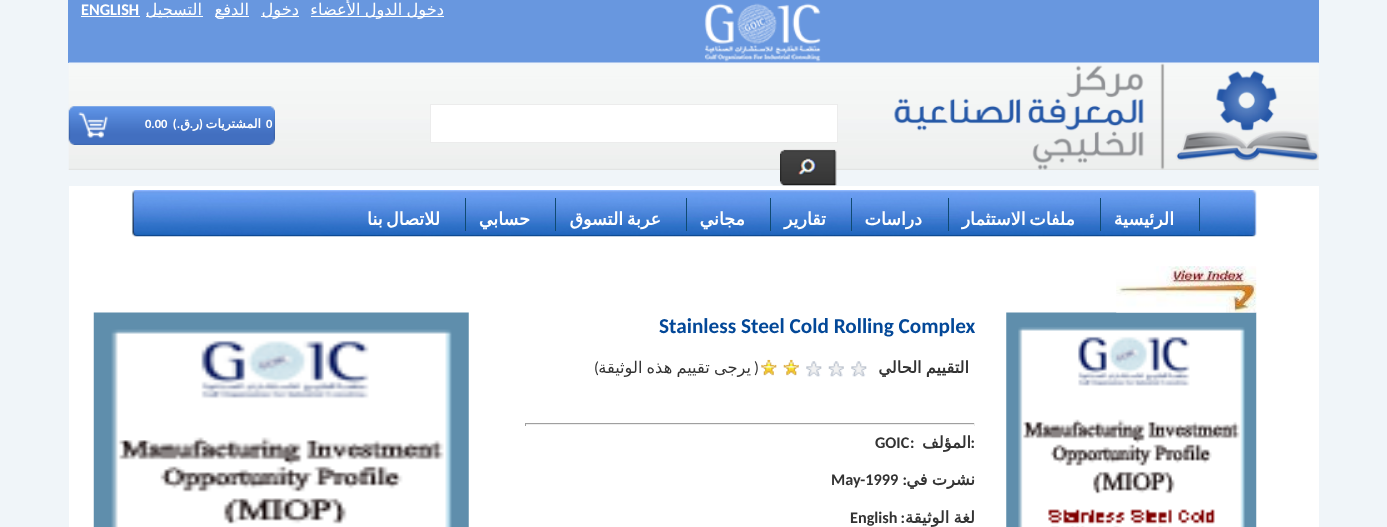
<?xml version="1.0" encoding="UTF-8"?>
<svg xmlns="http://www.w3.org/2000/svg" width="1387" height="527">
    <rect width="100%" height="100%" fill="#F0F5F9"/>
    <rect x="68" y="0" width="1251" height="63" fill="#6897DF"/>
    <image x="704" y="3" width="117" height="59" href="img_01.png"/>
    <rect x="311" y="16" width="133" height="1" fill="#FFFFFF"/>
    <text x="444" y="15" word-spacing="-1" font-family="DejaVu Sans" font-size="16.25" direction="rtl" fill="#FFFFFF">دخول الدول الأعضاء</text>
    <rect x="261" y="16" width="38" height="1" fill="#FFFFFF"/>
    <text x="299" y="15" font-family="DejaVu Sans" font-size="16.25" direction="rtl" fill="#FFFFFF">دخول</text>
    <rect x="215" y="16" width="34" height="1" fill="#FFFFFF"/>
    <text x="249" y="15" font-family="DejaVu Sans" font-size="16.25" direction="rtl" fill="#FFFFFF">الدفع</text>
    <rect x="146" y="16" width="57" height="1" fill="#FFFFFF"/>
    <text x="202" y="15" font-family="DejaVu Sans" font-size="16.25" direction="rtl" fill="#FFFFFF">التسجيل</text>
    <text x="81" y="15" font-family="Carlito" font-size="16.25" font-weight="700" fill="#FFFFFF">ENGLISH</text>
    <rect x="81" y="16" width="59" height="1" fill="#FFFFFF"/>
    <image x="68" y="62" width="1251" height="108" href="img_02.png"/>
    <image x="894" y="63" width="425" height="107" href="img_03.png"/>
    <rect x="430.5" y="104.5" width="407" height="38" fill="#FFFFFF" stroke="#ECECEC"/>
    <image x="780" y="149" width="57" height="37" href="img_04.png"/>
    <image x="68" y="106" width="207" height="39" href="img_05.png"/>
    <text x="266" y="128" font-family="Carlito" font-size="12.5" font-weight="700" fill="#FFFFFF">0</text>
    <text x="261" y="128" font-family="DejaVu Sans" font-size="12.5" font-weight="700" direction="rtl" fill="#FFFFFF">المشتريات</text>
    <text x="203" y="128" font-family="Carlito" font-size="12.5" font-weight="700" direction="rtl" fill="#FFFFFF">(</text>
    <text x="193" y="128" font-family="Carlito" font-size="12.5" font-weight="700" direction="rtl" fill="#FFFFFF">.</text>
    <text x="199" y="128" font-family="DejaVu Sans" font-size="12.5" font-weight="700" direction="rtl" fill="#FFFFFF">ر</text>
    <text x="190" y="128" font-family="DejaVu Sans" font-size="12.5" font-weight="700" direction="rtl" fill="#FFFFFF">ق</text>
    <text x="180" y="128" font-family="Carlito" font-size="12.5" font-weight="700" direction="rtl" fill="#FFFFFF">.)</text>
    <text x="145" y="128" font-family="Carlito" font-size="12.5" font-weight="700" fill="#FFFFFF">0.00</text>
    <rect x="69" y="186" width="1250" height="341" fill="#FFFFFF"/>
    <image x="131" y="190" width="1126" height="47" href="img_06.png"/>
    <rect x="1199" y="198" width="1" height="33" fill="#104A72"/>
    <text x="1174" y="225" font-family="DejaVu Sans" font-size="17.5" font-weight="700" direction="rtl" fill="#FFFFFF">الرئيسية</text>
    <rect x="1100" y="198" width="1" height="33" fill="#104A72"/>
    <text x="1075" y="225" word-spacing="-2" font-family="DejaVu Sans" font-size="17.5" font-weight="700" direction="rtl" fill="#FFFFFF">ملفات الاستثمار</text>
    <rect x="948" y="198" width="1" height="33" fill="#104A72"/>
    <text x="922" y="225" font-family="DejaVu Sans" font-size="17.5" font-weight="700" direction="rtl" fill="#FFFFFF">دراسات</text>
    <rect x="851" y="198" width="1" height="33" fill="#104A72"/>
    <text x="826" y="225" font-family="DejaVu Sans" font-size="17.5" font-weight="700" direction="rtl" fill="#FFFFFF">تقارير</text>
    <rect x="770" y="198" width="1" height="33" fill="#104A72"/>
    <text x="745" y="225" font-family="DejaVu Sans" font-size="17.5" font-weight="700" direction="rtl" fill="#FFFFFF">مجاني</text>
    <rect x="686" y="198" width="1" height="33" fill="#104A72"/>
    <text x="661" y="225" word-spacing="-2" font-family="DejaVu Sans" font-size="17.5" font-weight="700" direction="rtl" fill="#FFFFFF">عربة التسوق</text>
    <rect x="555" y="198" width="1" height="33" fill="#104A72"/>
    <text x="530" y="225" font-family="DejaVu Sans" font-size="17.5" font-weight="700" direction="rtl" fill="#FFFFFF">حسابي</text>
    <rect x="465" y="198" width="1" height="33" fill="#104A72"/>
    <text x="440" y="225" word-spacing="-2" font-family="DejaVu Sans" font-size="17.5" font-weight="700" direction="rtl" fill="#FFFFFF">للاتصال بنا</text>
    <image x="1006" y="312" width="251" height="215" href="img_08.png"/>
    <image x="1116" y="266" width="141" height="47" href="img_07.png"/>
    <text x="659" y="333" font-family="Carlito" font-size="21.25" font-weight="700" fill="#034898">Stainless Steel Cold Rolling Complex</text>
    <text x="969" y="373" word-spacing="-1" font-family="DejaVu Sans" font-size="16.25" font-weight="700" direction="rtl" fill="#333333">التقييم الحالي</text>
    <image x="851" y="361" width="16" height="16" href="img_09.png"/>
    <image x="828" y="361" width="16" height="16" href="img_10.png"/>
    <image x="806" y="361" width="16" height="16" href="img_09.png"/>
    <image x="783" y="359" width="16" height="17" href="img_11.png"/>
    <image x="761" y="359" width="16" height="17" href="img_12.png"/>
    <text x="759" y="373" font-family="Carlito" font-size="16.25" direction="rtl" fill="#333333">(</text>
    <text x="751" y="373" word-spacing="-1" font-family="DejaVu Sans" font-size="16.25" direction="rtl" fill="#333333">يرجى تقييم هذه الوثيقة</text>
    <text x="599" y="373" font-family="Carlito" font-size="16.25" direction="rtl" fill="#333333">)</text>
    <rect x="525" y="423" width="450" height="1" fill="#9F9F9F"/>
    <rect x="974" y="423" width="1" height="3" fill="#EEEEEE"/>
    <rect x="525" y="424" width="450" height="1" fill="#EEEEEE"/>
    <rect x="525" y="423" width="1" height="3" fill="#9F9F9F"/>
    <text x="975" y="448" font-family="Carlito" font-size="16.25" font-weight="700" direction="rtl" fill="#333333">:</text>
    <text x="971" y="448" font-family="DejaVu Sans" font-size="16.25" font-weight="700" direction="rtl" fill="#333333">المؤلف</text>
    <text x="910" y="448" font-family="Carlito" font-size="16.25" font-weight="700" fill="#333333">:</text>
    <text x="875" y="448" font-family="Carlito" font-size="16.25" font-weight="700" fill="#333333">GOIC</text>
    <text x="975" y="485" word-spacing="-1" font-family="DejaVu Sans" font-size="16.25" font-weight="700" direction="rtl" fill="#333333">نشرت في</text>
    <text x="907" y="485" font-family="Carlito" font-size="16.25" font-weight="700" direction="rtl" fill="#333333">:</text>
    <text x="831" y="485" font-family="Carlito" font-size="16.25" font-weight="700" fill="#333333">May-1999</text>
    <text x="975" y="523" word-spacing="-1" font-family="DejaVu Sans" font-size="16.25" font-weight="700" direction="rtl" fill="#333333">لغة الوثيقة</text>
    <text x="905" y="523" font-family="Carlito" font-size="16.25" font-weight="700" direction="rtl" fill="#333333">:</text>
    <text x="850" y="523" font-family="Carlito" font-size="16.25" font-weight="700" fill="#333333">English</text>
    <image x="93" y="312" width="376" height="215" href="img_13.png"/>
</svg>
